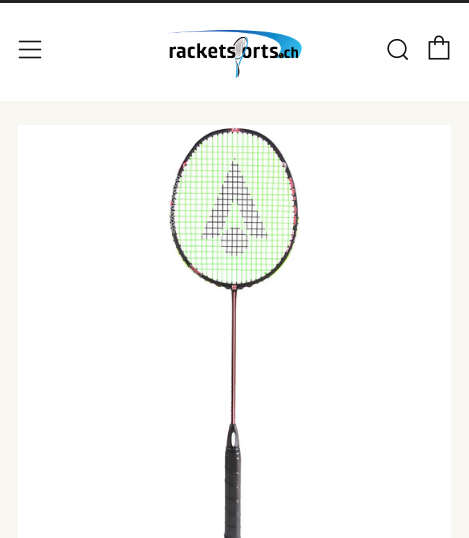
<?xml version="1.0" encoding="UTF-8"?>
<svg xmlns="http://www.w3.org/2000/svg" width="469" height="538">
    <rect width="100%" height="100%" fill="#F8F7F1"/>
    <rect x="0" y="0" width="469" height="3" fill="#212121"/>
    <rect x="0" y="3" width="469" height="98" fill="#FFFFFF"/>
    <image x="18" y="40" width="24" height="19" href="img_01.png"/>
    <image x="166" y="29" width="136" height="49" href="img_02.png"/>
    <image x="387" y="38" width="22" height="23" href="img_03.png"/>
    <image x="428" y="35" width="22" height="25" href="img_04.png"/>
    <image x="18" y="125" width="433" height="413" href="img_05.png"/>
</svg>
